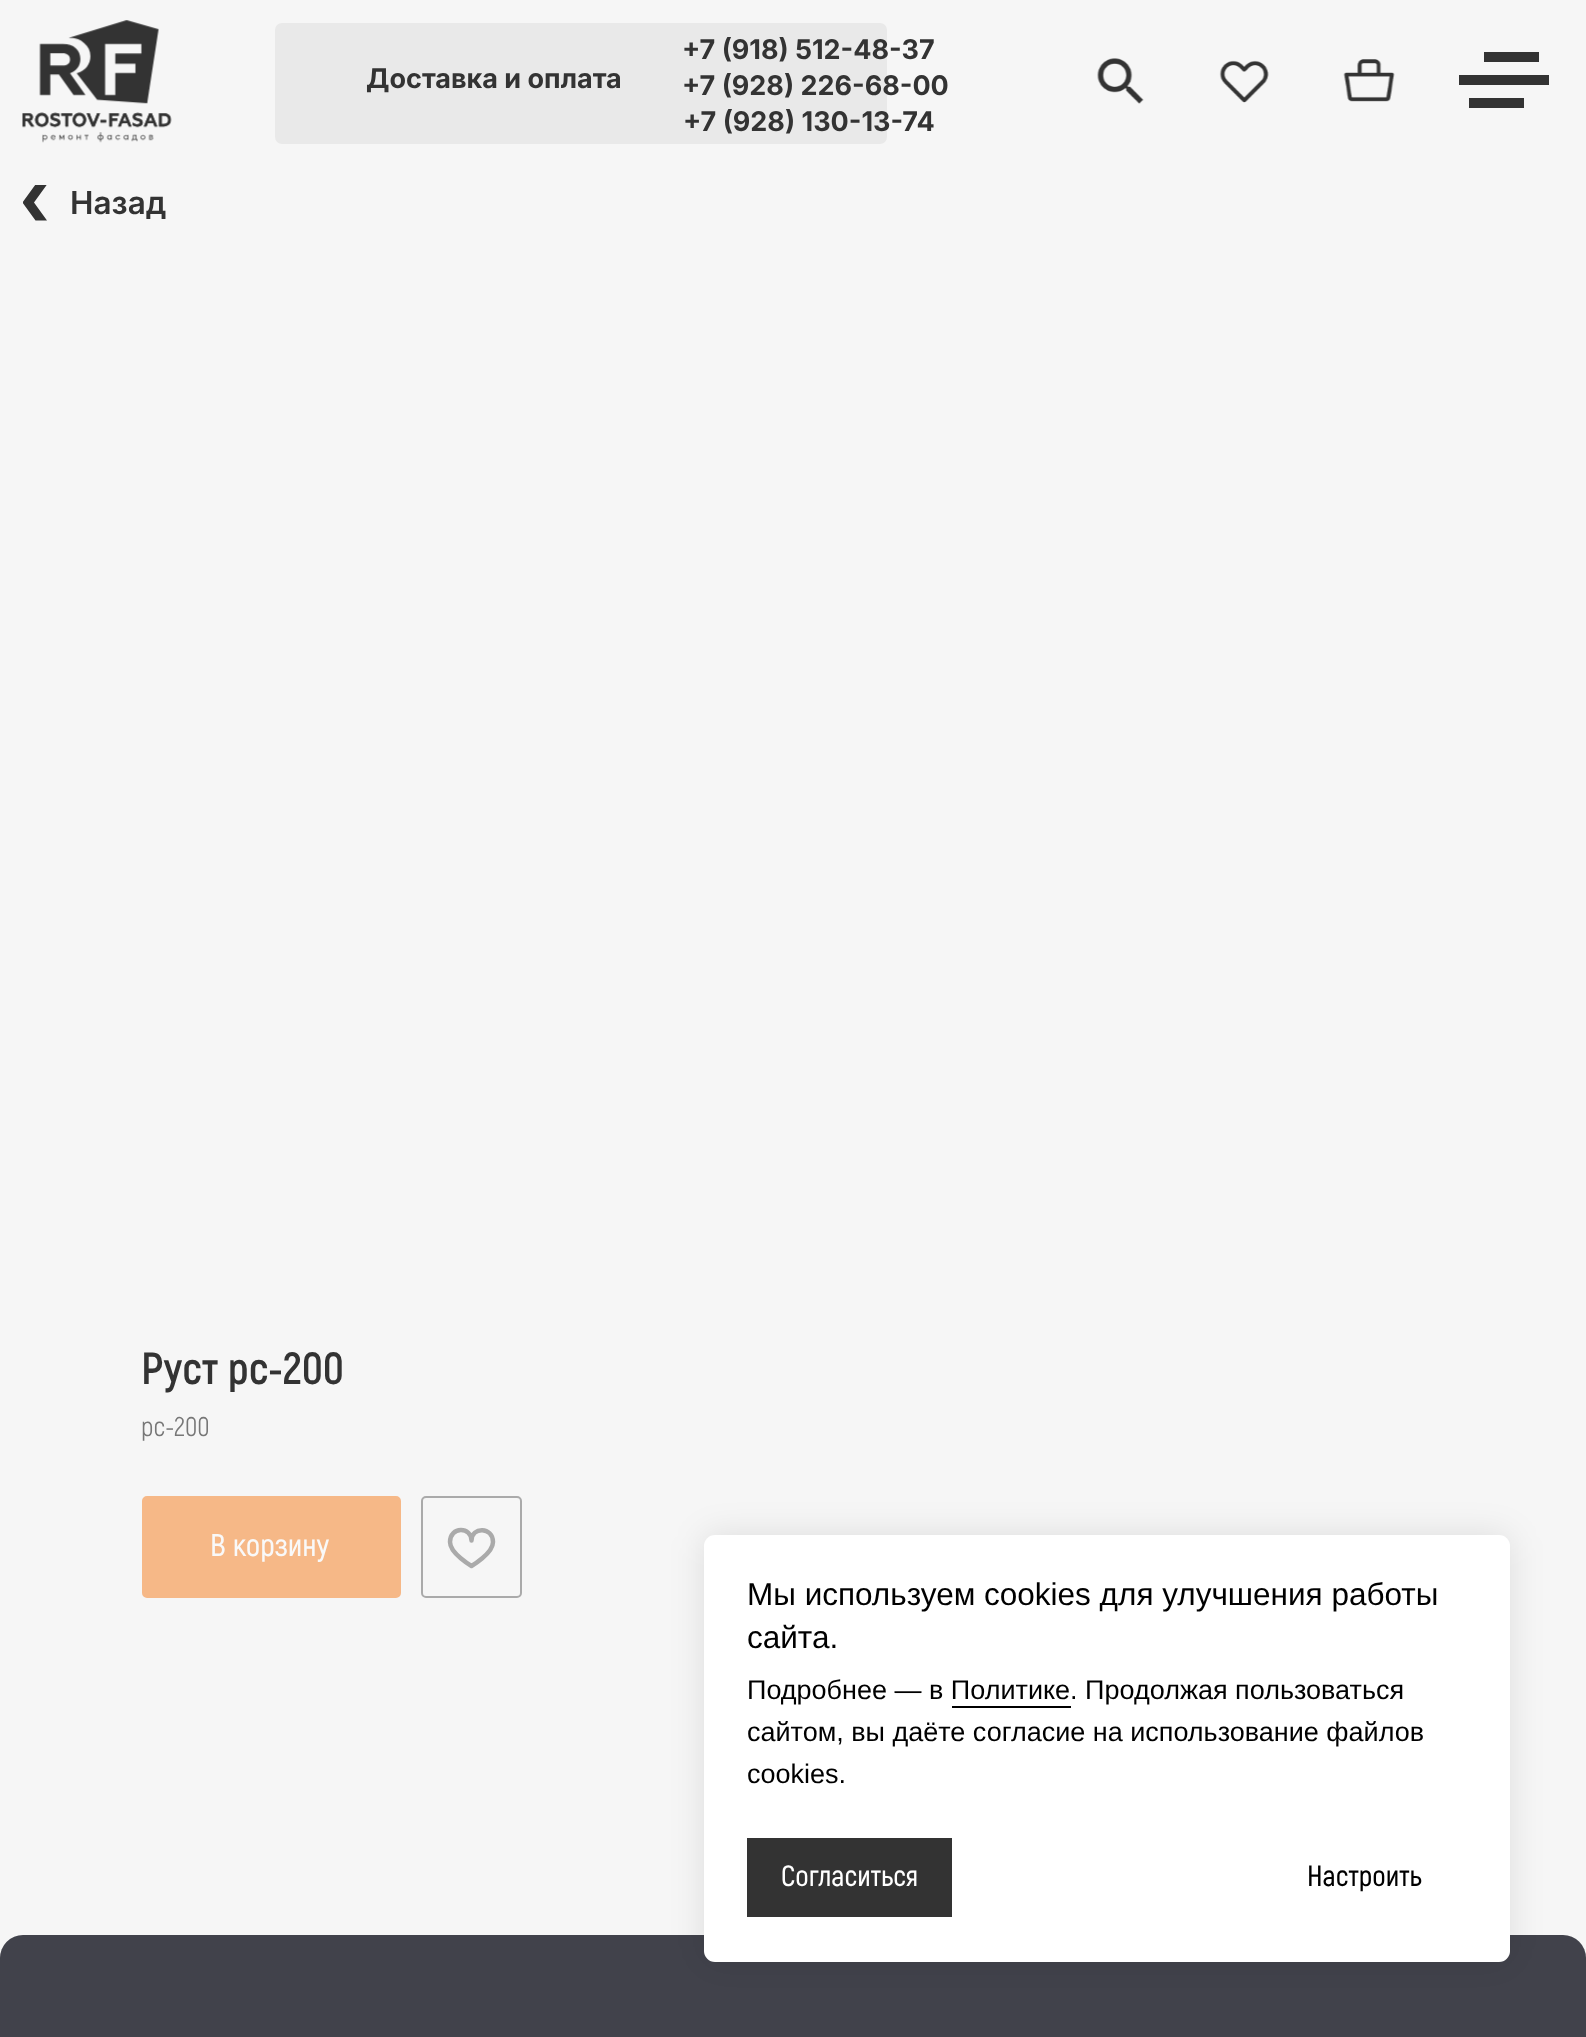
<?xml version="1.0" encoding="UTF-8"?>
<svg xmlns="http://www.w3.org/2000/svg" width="1586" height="2037">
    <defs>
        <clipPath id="clip1"><rect x="23" y="185" width="24" height="36"/></clipPath>
        <filter id="blur1" x="-50%" y="-200%" width="200%" height="500%"><feGaussianBlur stdDeviation="17"/></filter>
    </defs>
    <rect width="100%" height="100%" fill="#F6F6F6"/>
    <image x="22" y="20" width="150" height="123" href="img_01.png"/>
    <rect x="275" y="23" width="612" height="121" rx="7" fill="#E9E9E9"/>
    <text x="682" y="59" font-family="Inter" font-size="27" font-weight="700" fill="#333333">+7 (918) 512-48-37</text>
    <text x="366" y="88" font-family="Inter" font-size="27" font-weight="700" fill="#333333">Доставка и оплата</text>
    <text x="682" y="95" font-family="Inter" font-size="27" font-weight="700" fill="#333333">+7 (928) 226-68-00</text>
    <image x="1097" y="58" width="47" height="46" href="img_02.png"/>
    <image x="1219" y="60" width="50" height="43" href="img_03.png"/>
    <image x="1343" y="59" width="52" height="43" href="img_04.png"/>
    <path d="M 1524 98 V 108 H 1469 V 98 Z M 1549 75 V 85 H 1459 V 75 Z M 1539 52 V 62 H 1484 V 52 Z" fill="#333333"/>
    <text x="683" y="131" font-family="Inter" font-size="27" font-weight="700" fill="#333333">+7 (928) 130-13-74</text>
    <g clip-path="url(#clip1)">
        <path d="M 35.5 184.5 H 47 L 34 202.5 L 47 220.5 H 35.5 L 22.5 202.5 Z" fill="#333333"/>
    </g>
    <text x="70" y="214" font-family="Inter" font-size="31.5" font-weight="600" fill="#333333">Назад</text>
    <text x="141" y="1384" font-family="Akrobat" font-size="45" font-weight="700" fill="#333333">Руст рс-200</text>
    <text x="141" y="1436" font-family="Akrobat" font-size="27" fill="#777777">рс-200</text>
    <rect x="143" y="1497" width="257" height="100" rx="4" fill="#F6B887" stroke="#F6B887" stroke-width="2"/>
    <text x="210" y="1556" font-family="Akrobat" font-size="31.5" font-weight="600" fill="#F9F9F9">В корзину</text>
    <rect x="422" y="1497" width="99" height="100" rx="4" fill="none" stroke="#AAAAAA" stroke-width="2"/>
    <path d="M 493 1542 C 493 1553.5 471.5 1566 471.5 1566 C 471.5 1566 450 1553.5 450 1542 C 450 1526 471.5 1526.5 471.5 1540.5 C 471.5 1526.5 493 1526.5 493 1542 Z" fill="none" stroke="#AAAAAA" stroke-width="4.5" stroke-linejoin="round"/>
    <rect x="0" y="1935" width="1586" height="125" rx="23" fill="#41424B"/>
    <rect x="704" y="1535" width="806" height="427" rx="11" fill="#000000" fill-opacity="0.1" filter="url(#blur1)"/>
    <rect x="704" y="1535" width="806" height="427" rx="11" fill="#FFFFFF"/>
    <text font-family="Liberation Sans" font-size="31.5" fill="#000000">
        <tspan x="747" y="1605">Мы используем cookies для улучшения работы</tspan>
        <tspan x="747" y="1648">сайта.</tspan>
    </text>
    <text x="747" y="1699" font-family="Liberation Sans" font-size="27" fill="#000000">Подробнее — в Политике. Продолжая пользоваться</text>
    <rect x="952" y="1706" width="119" height="2" fill="#000000"/>
    <text font-family="Liberation Sans" font-size="27" fill="#000000">
        <tspan x="747" y="1741">сайтом, вы даёте согласие на использование файлов</tspan>
        <tspan x="747" y="1783">cookies.</tspan>
    </text>
    <rect x="747" y="1838" width="205" height="79" fill="#333333"/>
    <text x="781" y="1886" font-family="Akrobat" font-size="29.25" font-weight="600" fill="#FFFFFF">Согласиться</text>
    <text x="1307" y="1886" font-family="Akrobat" font-size="29.25" font-weight="600" fill="#000000">Настроить</text>
</svg>
